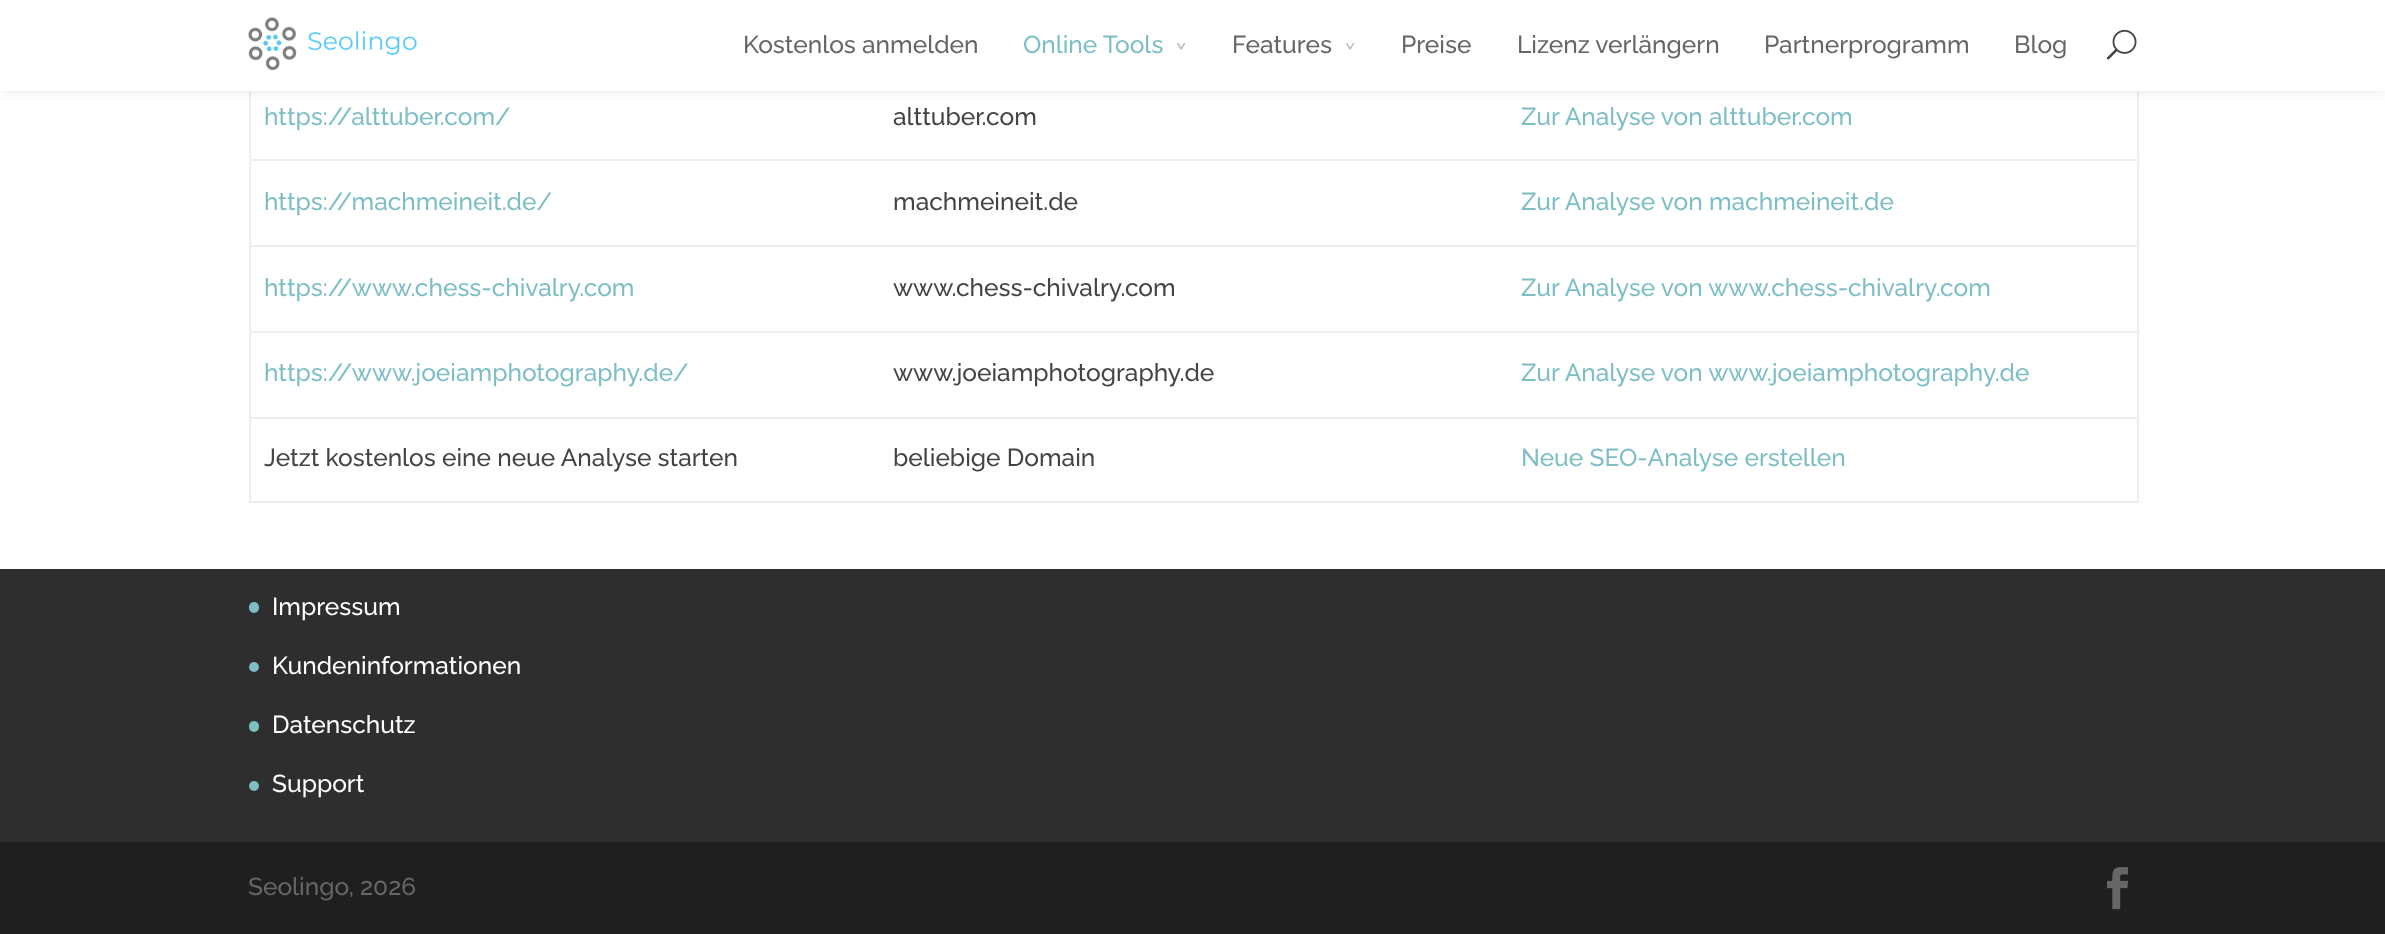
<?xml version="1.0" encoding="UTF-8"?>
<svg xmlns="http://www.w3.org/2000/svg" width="2385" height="934">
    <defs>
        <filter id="blur1" x="-50%" y="-200%" width="200%" height="500%"><feGaussianBlur stdDeviation="6"/></filter>
    </defs>
    <rect width="100%" height="100%" fill="#FFFFFF"/>
    <rect x="2137" y="91" width="2" height="411" fill="#EEEEEE"/>
    <rect x="249" y="501" width="1890" height="2" fill="#EEEEEE"/>
    <rect x="249" y="91" width="2" height="411" fill="#EEEEEE"/>
    <rect x="0" y="0" width="2385" height="91" fill="#000000" fill-opacity="0.1" filter="url(#blur1)"/>
    <rect x="0" y="0" width="2385" height="91" fill="#FFFFFF"/>
    <image x="248" y="17" width="169" height="53" href="img_01.png"/>
    <text x="743" y="53" font-family="Raleway" font-size="24.5" font-weight="500" fill="#666666">Kostenlos anmelden</text>
    <text x="1023" y="53" font-family="Raleway" font-size="24.5" font-weight="500" fill="#7EBEC5">Online Tools</text>
    <text x="1177" y="42" transform="rotate(90 1177 42)" font-family="Raleway" font-size="16" font-weight="500" fill="#B7B7B7">&gt;</text>
    <text x="1232" y="53" font-family="Raleway" font-size="24.5" font-weight="500" fill="#666666">Features</text>
    <text x="1346" y="42" transform="rotate(90 1346 42)" font-family="Raleway" font-size="16" font-weight="500" fill="#B7B7B7">&gt;</text>
    <text x="1401" y="53" font-family="Raleway" font-size="24.5" font-weight="500" fill="#666666">Preise</text>
    <text x="1517" y="53" font-family="Raleway" font-size="24.5" font-weight="500" fill="#666666">Lizenz verlängern</text>
    <text x="1764" y="53" font-family="Raleway" font-size="24.5" font-weight="500" fill="#666666">Partnerprogramm</text>
    <text x="2014" y="53" font-family="Raleway" font-size="24.5" font-weight="500" fill="#666666">Blog</text>
    <image x="2106" y="29" width="31" height="31" href="img_02.png"/>
    <text x="264" y="125" font-family="Raleway" font-size="24.5" font-weight="500" fill="#7EBEC5">https://alttuber.com/</text>
    <text x="893" y="125" font-family="Raleway" font-size="24.5" font-weight="500" fill="#444444">alttuber.com</text>
    <text x="1521" y="125" font-family="Raleway" font-size="24.5" font-weight="500" fill="#7EBEC5">Zur Analyse von alttuber.com</text>
    <text x="264" y="210" font-family="Raleway" font-size="24.5" font-weight="500" fill="#7EBEC5">https://machmeineit.de/</text>
    <text x="893" y="210" font-family="Raleway" font-size="24.5" font-weight="500" fill="#444444">machmeineit.de</text>
    <rect x="249" y="159" width="1890" height="2" fill="#EEEEEE"/>
    <text x="1521" y="210" font-family="Raleway" font-size="24.5" font-weight="500" fill="#7EBEC5">Zur Analyse von machmeineit.de</text>
    <text x="264" y="296" font-family="Raleway" font-size="24.5" font-weight="500" fill="#7EBEC5">https://www.chess-chivalry.com</text>
    <text x="893" y="296" font-family="Raleway" font-size="24.5" font-weight="500" fill="#444444">www.chess-chivalry.com</text>
    <rect x="249" y="245" width="1890" height="2" fill="#EEEEEE"/>
    <text x="1521" y="296" font-family="Raleway" font-size="24.5" font-weight="500" fill="#7EBEC5">Zur Analyse von www.chess-chivalry.com</text>
    <text x="264" y="381" font-family="Raleway" font-size="24.5" font-weight="500" fill="#7EBEC5">https://www.joeiamphotography.de/</text>
    <text x="893" y="381" font-family="Raleway" font-size="24.5" font-weight="500" fill="#444444">www.joeiamphotography.de</text>
    <rect x="249" y="331" width="1890" height="2" fill="#EEEEEE"/>
    <text x="1521" y="381" font-family="Raleway" font-size="24.5" font-weight="500" fill="#7EBEC5">Zur Analyse von www.joeiamphotography.de</text>
    <text x="264" y="466" font-family="Raleway" font-size="24.5" font-weight="500" fill="#444444">Jetzt kostenlos eine neue Analyse starten</text>
    <text x="893" y="466" font-family="Raleway" font-size="24.5" font-weight="500" fill="#444444">beliebige Domain</text>
    <rect x="249" y="417" width="1890" height="2" fill="#EEEEEE"/>
    <text x="1521" y="466" font-family="Raleway" font-size="24.5" font-weight="500" fill="#7EBEC5">Neue SEO-Analyse erstellen</text>
    <rect x="0" y="569" width="2385" height="273" fill="#2E2E2E"/>
    <rect x="249" y="602" width="10" height="11" rx="5" fill="#7EBEC5"/>
    <text x="272" y="615" font-family="Raleway" font-size="24.5" font-weight="500" fill="#FFFFFF">Impressum</text>
    <circle cx="254" cy="667" r="5" fill="#7EBEC5"/>
    <text x="272" y="674" font-family="Raleway" font-size="24.5" font-weight="500" fill="#FFFFFF">Kundeninformationen</text>
    <rect x="249" y="721" width="10" height="11" rx="5" fill="#7EBEC5"/>
    <text x="272" y="733" font-family="Raleway" font-size="24.5" font-weight="500" fill="#FFFFFF">Datenschutz</text>
    <circle cx="254" cy="786" r="5" fill="#7EBEC5"/>
    <text x="272" y="792" font-family="Raleway" font-size="24.5" font-weight="500" fill="#FFFFFF">Support</text>
    <rect x="0" y="842" width="2385" height="92" fill="#1F1F1F"/>
    <text x="248" y="895" font-family="Raleway" font-size="24.5" font-weight="500" fill="#666666">Seolingo, 2026</text>
    <image x="2107" y="867" width="21" height="43" href="img_03.png"/>
</svg>
